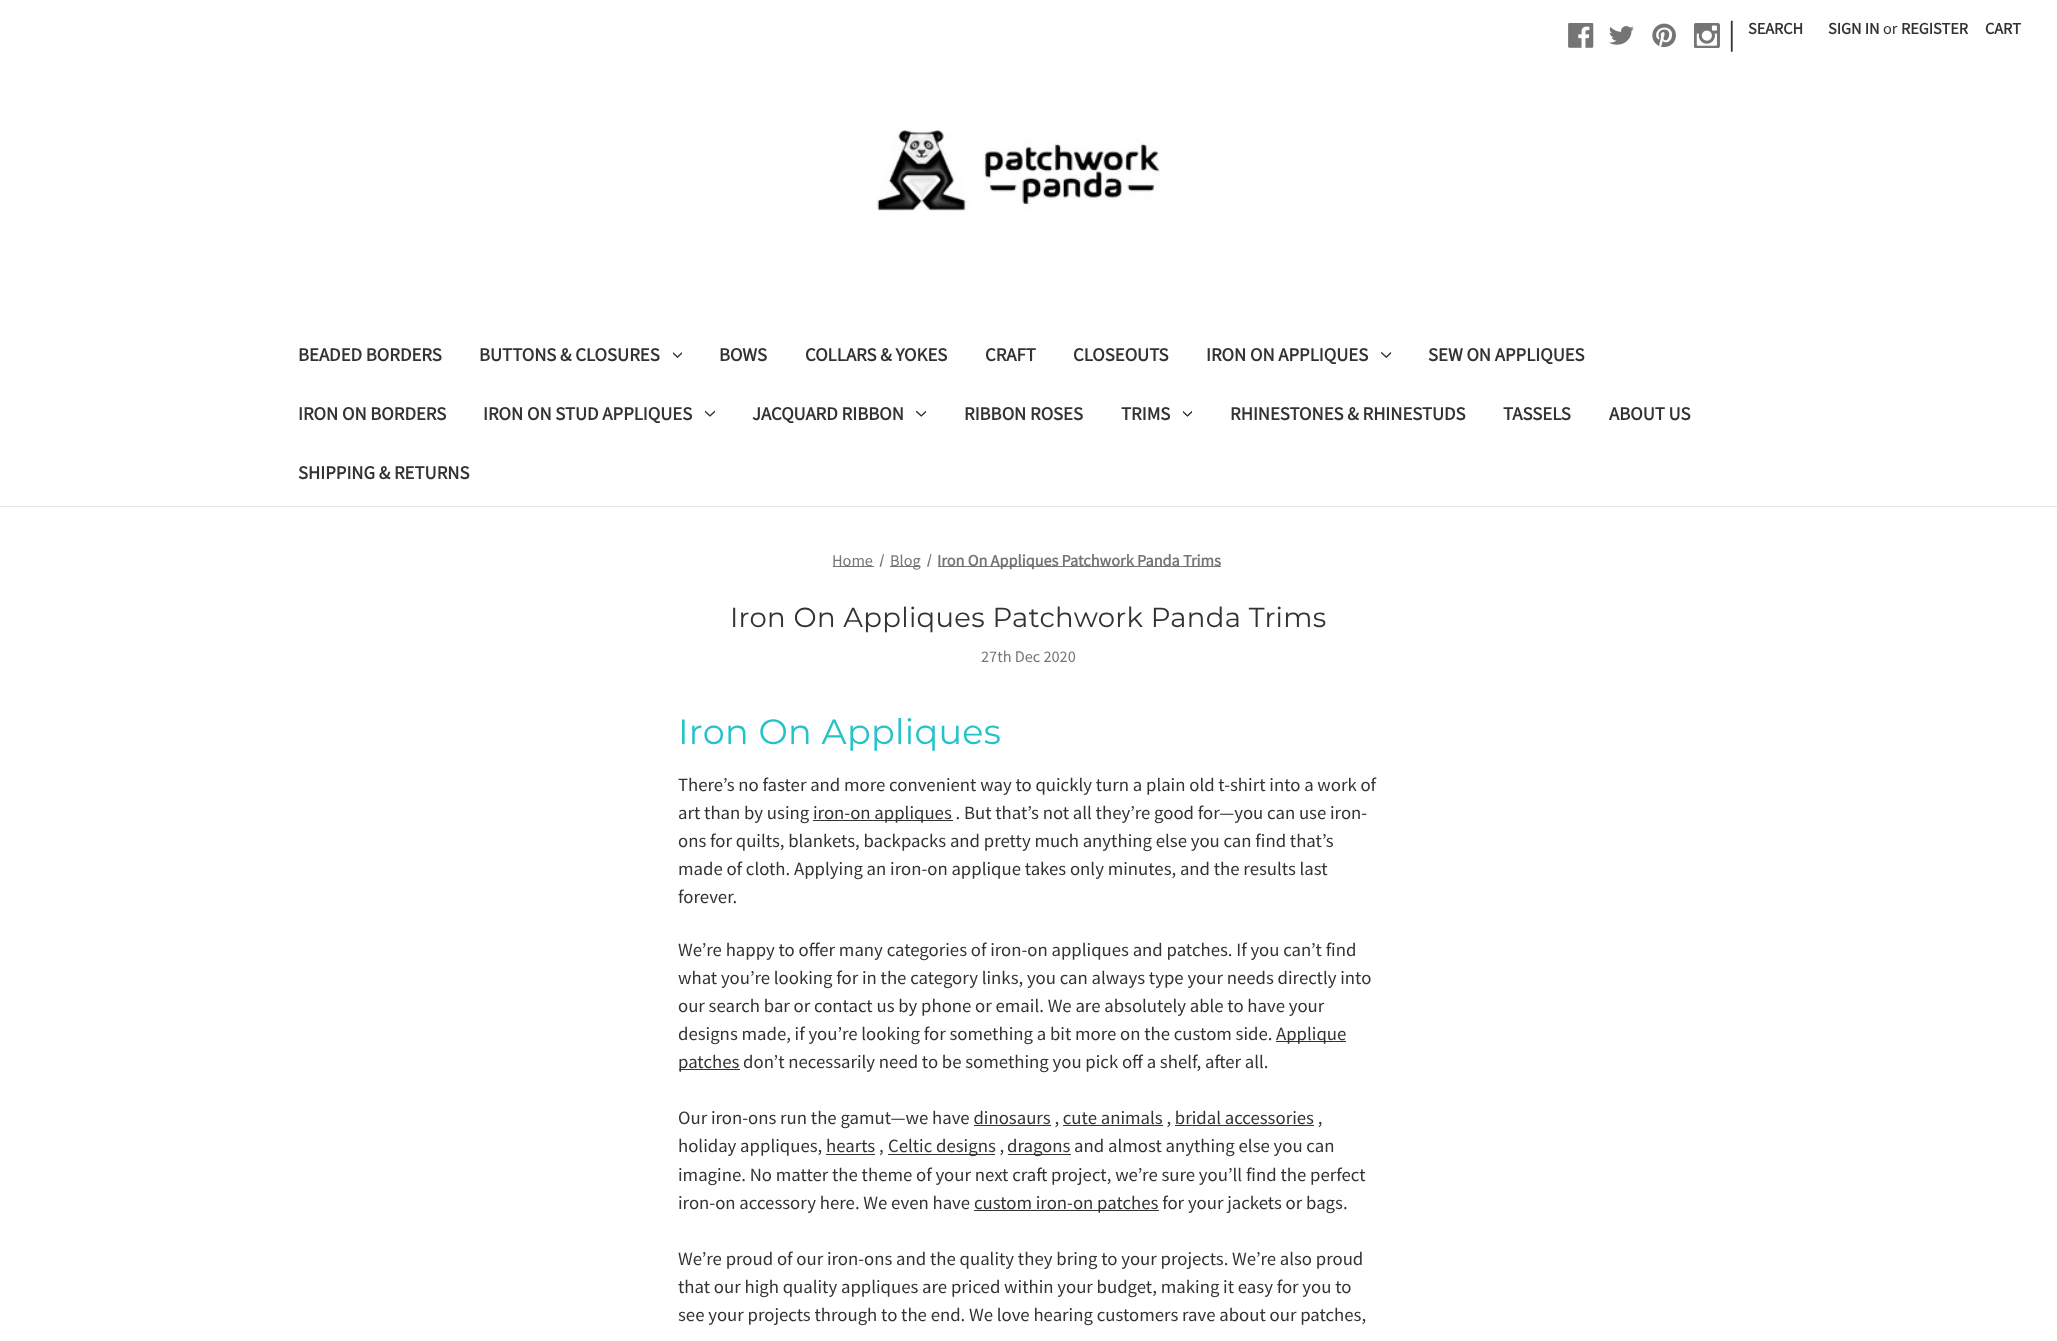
<?xml version="1.0" encoding="UTF-8"?>
<svg xmlns="http://www.w3.org/2000/svg" width="2057" height="1341">
    <rect width="100%" height="100%" fill="#FFFFFF"/>
    <rect x="0" y="506" width="2057" height="1" fill="#E5E5E5"/>
    <image x="1568" y="23" width="26" height="25" href="img_01.png"/>
    <image x="1609" y="26" width="25" height="19" href="img_02.png"/>
    <image x="1652" y="23" width="24" height="25" href="img_03.png"/>
    <image x="1694" y="23" width="26" height="25" href="img_04.png"/>
    <text x="1728" y="44" font-family="Source Sans Pro" font-size="31" fill="#333333">|</text>
    <text x="1748" y="34" font-family="Source Sans Pro" font-size="16.25" font-weight="700" fill="#333333">SEARCH</text>
    <text x="1828" y="34" font-family="Source Sans Pro" font-size="16.25" font-weight="700" fill="#333333">SIGN IN</text>
    <text x="1883" y="34" font-family="Source Sans Pro" font-size="16.25" fill="#333333">or</text>
    <text x="1901" y="34" font-family="Source Sans Pro" font-size="16.25" font-weight="700" fill="#333333">REGISTER</text>
    <text x="1985" y="34" font-family="Source Sans Pro" font-size="16.25" font-weight="700" fill="#333333">CART</text>
    <image x="876" y="130" width="285" height="81" href="img_05.png"/>
    <text x="298" y="361" font-family="Source Sans Pro" font-size="18.75" font-weight="700" fill="#333333">BEADED BORDERS</text>
    <text x="479" y="361" font-family="Source Sans Pro" font-size="18.75" font-weight="700" fill="#333333">BUTTONS &amp; CLOSURES</text>
    <image x="673" y="352" width="9" height="6" href="img_06.png"/>
    <text x="719" y="361" font-family="Source Sans Pro" font-size="18.75" font-weight="700" fill="#333333">BOWS</text>
    <text x="805" y="361" font-family="Source Sans Pro" font-size="18.75" font-weight="700" fill="#333333">COLLARS &amp; YOKES</text>
    <text x="985" y="361" font-family="Source Sans Pro" font-size="18.75" font-weight="700" fill="#333333">CRAFT</text>
    <text x="1073" y="361" font-family="Source Sans Pro" font-size="18.75" font-weight="700" fill="#333333">CLOSEOUTS</text>
    <text x="1206" y="361" font-family="Source Sans Pro" font-size="18.75" font-weight="700" fill="#333333">IRON ON APPLIQUES</text>
    <image x="1381" y="352" width="10" height="6" href="img_07.png"/>
    <text x="1428" y="361" font-family="Source Sans Pro" font-size="18.75" font-weight="700" fill="#333333">SEW ON APPLIQUES</text>
    <text x="298" y="420" font-family="Source Sans Pro" font-size="18.75" font-weight="700" fill="#333333">IRON ON BORDERS</text>
    <text x="483" y="420" font-family="Source Sans Pro" font-size="18.75" font-weight="700" fill="#333333">IRON ON STUD APPLIQUES</text>
    <image x="705" y="410" width="10" height="7" href="img_08.png"/>
    <text x="752" y="420" font-family="Source Sans Pro" font-size="18.75" font-weight="700" fill="#333333">JACQUARD RIBBON</text>
    <image x="916" y="410" width="10" height="7" href="img_09.png"/>
    <text x="964" y="420" font-family="Source Sans Pro" font-size="18.75" font-weight="700" fill="#333333">RIBBON ROSES</text>
    <text x="1121" y="420" font-family="Source Sans Pro" font-size="18.75" font-weight="700" fill="#333333">TRIMS</text>
    <image x="1183" y="410" width="9" height="7" href="img_10.png"/>
    <text x="1230" y="420" font-family="Source Sans Pro" font-size="18.75" font-weight="700" fill="#333333">RHINESTONES &amp; RHINESTUDS</text>
    <text x="1503" y="420" font-family="Source Sans Pro" font-size="18.75" font-weight="700" fill="#333333">TASSELS</text>
    <text x="1609" y="420" font-family="Source Sans Pro" font-size="18.75" font-weight="700" fill="#333333">ABOUT US</text>
    <text x="298" y="479" font-family="Source Sans Pro" font-size="18.75" font-weight="700" fill="#333333">SHIPPING &amp; RETURNS</text>
    <rect x="833" y="566" width="41" height="1" fill="#757575"/>
    <text x="832" y="566" font-family="Source Sans Pro" font-size="16.25" fill="#757575">Home</text>
    <rect x="890" y="566" width="30" height="1" fill="#757575"/>
    <path d="M 883 554 H 884 L 881 567 L 879.5 566.5 Z M 930.5 554 H 931.5 L 928.5 567 L 927 566.5 Z" fill="#757575"/>
    <text x="890" y="566" font-family="Source Sans Pro" font-size="16.25" fill="#757575">Blog</text>
    <rect x="938" y="566" width="283" height="1" fill="#757575"/>
    <text x="937" y="566" font-family="Source Sans Pro" font-size="16.25" font-weight="700" fill="#757575">Iron On Appliques Patchwork Panda Trims</text>
    <text x="730" y="627" font-family="Montserrat" font-size="27.5" letter-spacing="0.3" fill="#333333">Iron On Appliques Patchwork Panda Trims</text>
    <text x="981" y="662" font-family="Source Sans Pro" font-size="16.25" fill="#757575">27th Dec 2020</text>
    <text x="678" y="744" font-family="Montserrat" font-size="35" letter-spacing="0.3" fill="#23C3C9">Iron On Appliques</text>
    <text font-family="Source Sans Pro" font-size="18.75" fill="#333333">
        <tspan x="678" y="791">There’s no faster and more convenient way to quickly turn a plain old t-shirt into a work of</tspan>
        <tspan x="678" y="819">art than by using</tspan>
    </text>
    <rect x="813" y="820" width="140" height="1" fill="#333333"/>
    <text x="813" y="819" font-family="Source Sans Pro" font-size="18.75" fill="#333333">iron-on appliques . But that’s not all they’re good for—you can use iron-</text>
    <text font-family="Source Sans Pro" font-size="18.75" fill="#333333">
        <tspan x="678" y="847">ons for quilts, blankets, backpacks and pretty much anything else you can find that’s</tspan>
        <tspan x="678" y="875">made of cloth. Applying an iron-on applique takes only minutes, and the results last</tspan>
        <tspan x="678" y="903">forever.</tspan>
    </text>
    <text font-family="Source Sans Pro" font-size="18.75" fill="#333333">
        <tspan x="678" y="956">We’re happy to offer many categories of iron-on appliques and patches. If you can’t find</tspan>
        <tspan x="678" y="984">what you’re looking for in the category links, you can always type your needs directly into</tspan>
        <tspan x="678" y="1012">our search bar or contact us by phone or email. We are absolutely able to have your</tspan>
        <tspan x="678" y="1040">designs made, if you’re looking for something a bit more on the custom side.</tspan>
    </text>
    <rect x="1276" y="1041" width="70" height="1" fill="#333333"/>
    <text x="1276" y="1040" font-family="Source Sans Pro" font-size="18.75" fill="#333333">Applique</text>
    <rect x="679" y="1069" width="61" height="1" fill="#333333"/>
    <text x="678" y="1068" font-family="Source Sans Pro" font-size="18.75" fill="#333333">patches don’t necessarily need to be something you pick off a shelf, after all.</text>
    <text x="678" y="1124" font-family="Source Sans Pro" font-size="18.75" fill="#333333">Our iron-ons run the gamut—we have dinosaurs , cute animals , bridal accessories ,</text>
    <rect x="974" y="1125" width="77" height="1" fill="#333333"/>
    <rect x="1063" y="1125" width="100" height="1" fill="#333333"/>
    <rect x="1175" y="1125" width="139" height="1" fill="#333333"/>
    <text x="678" y="1152" font-family="Source Sans Pro" font-size="18.75" fill="#333333">holiday appliques, hearts ,</text>
    <rect x="888" y="1154" width="107" height="1" fill="#333333"/>
    <text x="888" y="1152" font-family="Source Sans Pro" font-size="18.75" fill="#333333">Celtic designs ,</text>
    <rect x="1008" y="1154" width="63" height="1" fill="#333333"/>
    <text x="1007" y="1152" font-family="Source Sans Pro" font-size="18.75" fill="#333333">dragons and almost anything else you can</text>
    <rect x="826" y="1154" width="49" height="1" fill="#333333"/>
    <text font-family="Source Sans Pro" font-size="18.75" fill="#333333">
        <tspan x="678" y="1181">imagine. No matter the theme of your next craft project, we’re sure you’ll find the perfect</tspan>
        <tspan x="678" y="1209">iron-on accessory here. We even have</tspan>
    </text>
    <rect x="974" y="1210" width="185" height="1" fill="#333333"/>
    <text x="974" y="1209" font-family="Source Sans Pro" font-size="18.75" fill="#333333">custom iron-on patches for your jackets or bags.</text>
    <text font-family="Source Sans Pro" font-size="18.75" fill="#333333">
        <tspan x="678" y="1265">We’re proud of our iron-ons and the quality they bring to your projects. We’re also proud</tspan>
        <tspan x="678" y="1293">that our high quality appliques are priced within your budget, making it easy for you to</tspan>
        <tspan x="678" y="1321">see your projects through to the end. We love hearing customers rave about our patches,</tspan>
    </text>
</svg>
